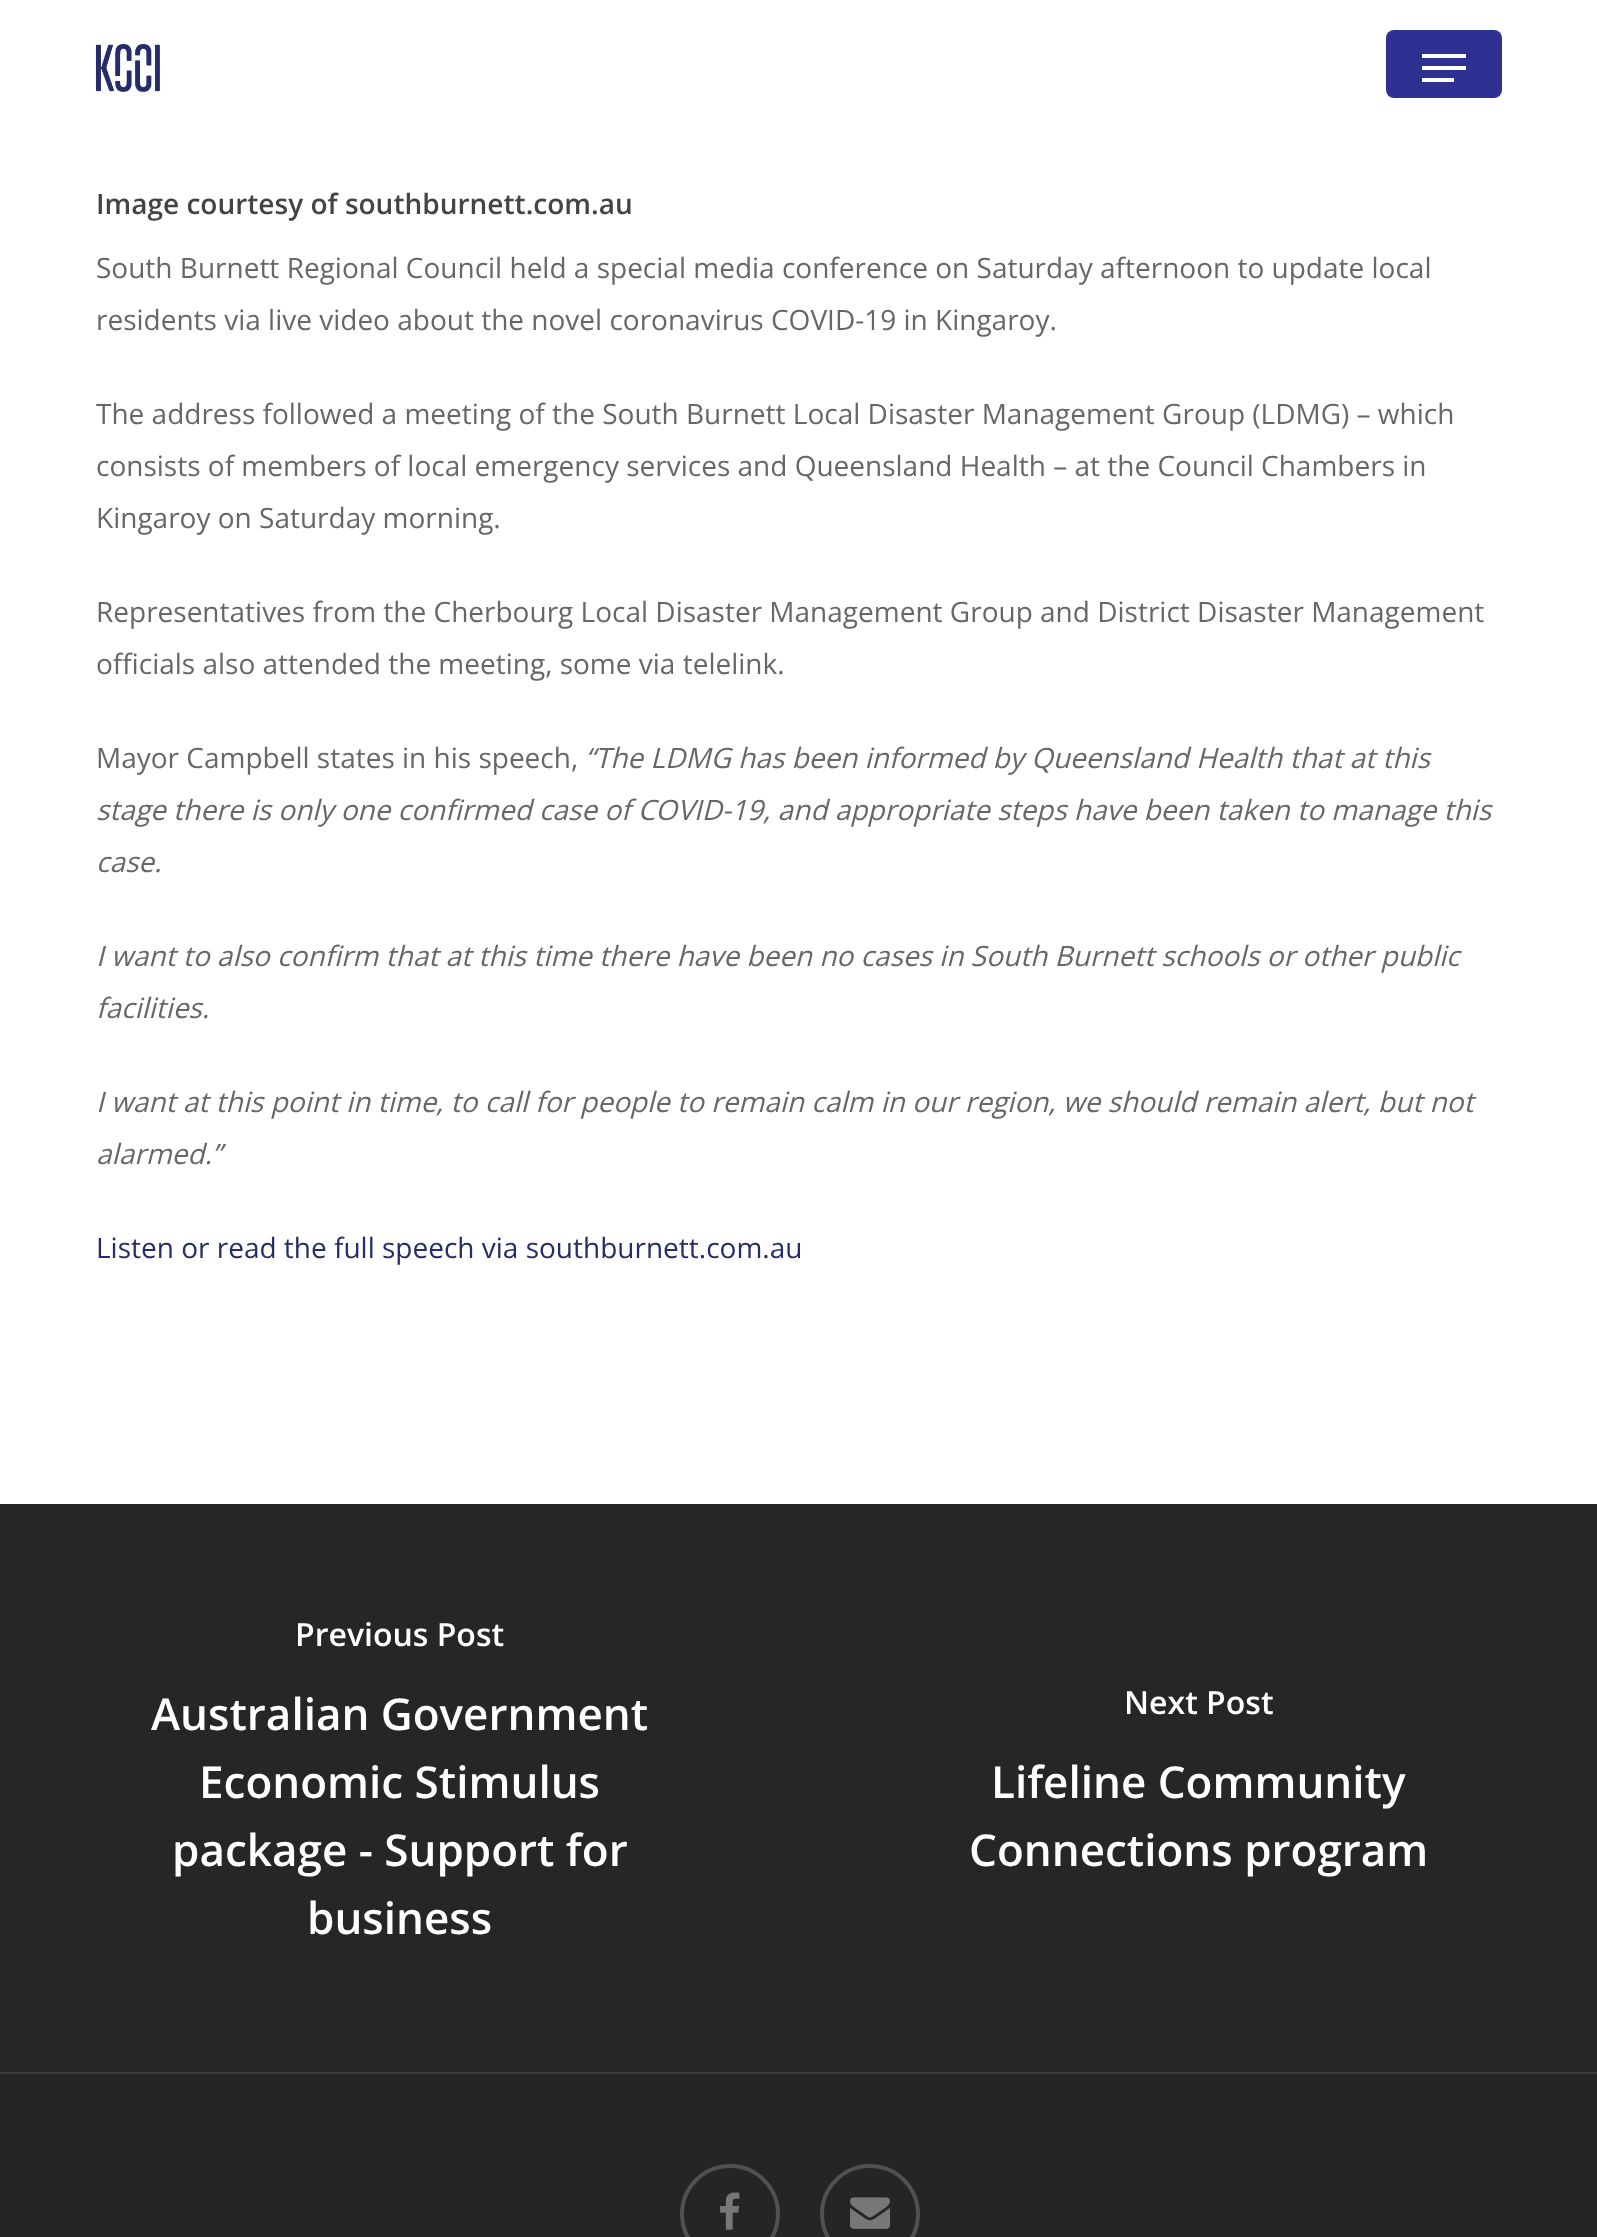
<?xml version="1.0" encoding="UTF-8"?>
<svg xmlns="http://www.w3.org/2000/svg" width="1597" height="2237">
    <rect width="100%" height="100%" fill="#FFFFFF"/>
    <image x="95" y="44" width="65" height="48" href="img_01.png"/>
    <rect x="1386" y="30" width="116" height="68" rx="8" fill="#2E3192"/>
    <rect x="1422" y="54" width="44" height="4" fill="#FFFFFF"/>
    <rect x="1422" y="78" width="32" height="4" fill="#FFFFFF"/>
    <rect x="1422" y="66" width="44" height="4" fill="#FFFFFF"/>
    <text x="96" y="214" font-family="Open Sans" font-size="28" font-weight="600" fill="#444444">Image courtesy of southburnett.com.au</text>
    <text font-family="Open Sans" font-size="28" fill="#676767">
        <tspan x="96" y="278">South Burnett Regional Council held a special media conference on Saturday afternoon to update local</tspan>
        <tspan x="96" y="330">residents via live video about the novel coronavirus COVID-19 in Kingaroy.</tspan>
    </text>
    <text font-family="Open Sans" font-size="28" fill="#676767">
        <tspan x="96" y="424">The address followed a meeting of the South Burnett Local Disaster Management Group (LDMG) – which</tspan>
        <tspan x="96" y="476">consists of members of local emergency services and Queensland Health – at the Council Chambers in</tspan>
        <tspan x="96" y="528">Kingaroy on Saturday morning.</tspan>
    </text>
    <text font-family="Open Sans" font-size="28" fill="#676767">
        <tspan x="96" y="622">Representatives from the Cherbourg Local Disaster Management Group and District Disaster Management</tspan>
        <tspan x="96" y="674">officials also attended the meeting, some via telelink.</tspan>
    </text>
    <text x="96" y="768" font-family="Open Sans" font-size="28" fill="#676767">Mayor Campbell states in his speech,</text>
    <text x="585" y="768" font-family="Open Sans" font-size="28" font-style="italic" fill="#676767">“The LDMG has been informed by Queensland Health that at this</text>
    <text font-family="Open Sans" font-size="28" font-style="italic" fill="#676767">
        <tspan x="96" y="820">stage there is only one confirmed case of COVID-19, and appropriate steps have been taken to manage this</tspan>
        <tspan x="96" y="872">case.</tspan>
    </text>
    <text font-family="Open Sans" font-size="28" font-style="italic" fill="#676767">
        <tspan x="96" y="966">I want to also confirm that at this time there have been no cases in South Burnett schools or other public</tspan>
        <tspan x="96" y="1018">facilities.</tspan>
    </text>
    <text font-family="Open Sans" font-size="28" font-style="italic" fill="#676767">
        <tspan x="96" y="1112">I want at this point in time, to call for people to remain calm in our region, we should remain alert, but not</tspan>
        <tspan x="96" y="1164">alarmed.”</tspan>
    </text>
    <text x="96" y="1258" font-family="Open Sans" font-size="28" fill="#262C69">Listen or read the full speech via southburnett.com.au</text>
    <rect x="0" y="1504" width="1597" height="566" fill="#262626"/>
    <text x="295" y="1646" font-family="Open Sans" font-size="32" font-weight="600" fill="#FFFFFF">Previous Post</text>
    <text x="151" y="1730" font-family="Open Sans" font-size="44" font-weight="600" fill="#FFFFFF">Australian Government</text>
    <text x="199" y="1798" font-family="Open Sans" font-size="44" font-weight="600" fill="#FFFFFF">Economic Stimulus</text>
    <text x="172" y="1866" font-family="Open Sans" font-size="44" font-weight="600" fill="#FFFFFF">package - Support for</text>
    <text x="307" y="1934" font-family="Open Sans" font-size="44" font-weight="600" fill="#FFFFFF">business</text>
    <text x="1124" y="1714" font-family="Open Sans" font-size="32" font-weight="600" fill="#FFFFFF">Next Post</text>
    <text x="991" y="1798" font-family="Open Sans" font-size="44" font-weight="600" fill="#FFFFFF">Lifeline Community</text>
    <text x="969" y="1866" font-family="Open Sans" font-size="44" font-weight="600" fill="#FFFFFF">Connections program</text>
    <rect x="0" y="2070" width="1597" height="167" fill="#252525"/>
    <rect x="0" y="2072" width="1597" height="2" fill="#3B3B3B"/>
    <image x="720" y="2192" width="20" height="38" href="img_02.png"/>
    <circle cx="730" cy="2214" r="48" fill="none" stroke="#515151" stroke-width="4"/>
    <image x="850" y="2197" width="40" height="32" href="img_03.png"/>
    <circle cx="870" cy="2214" r="48" fill="none" stroke="#515151" stroke-width="4"/>
</svg>
